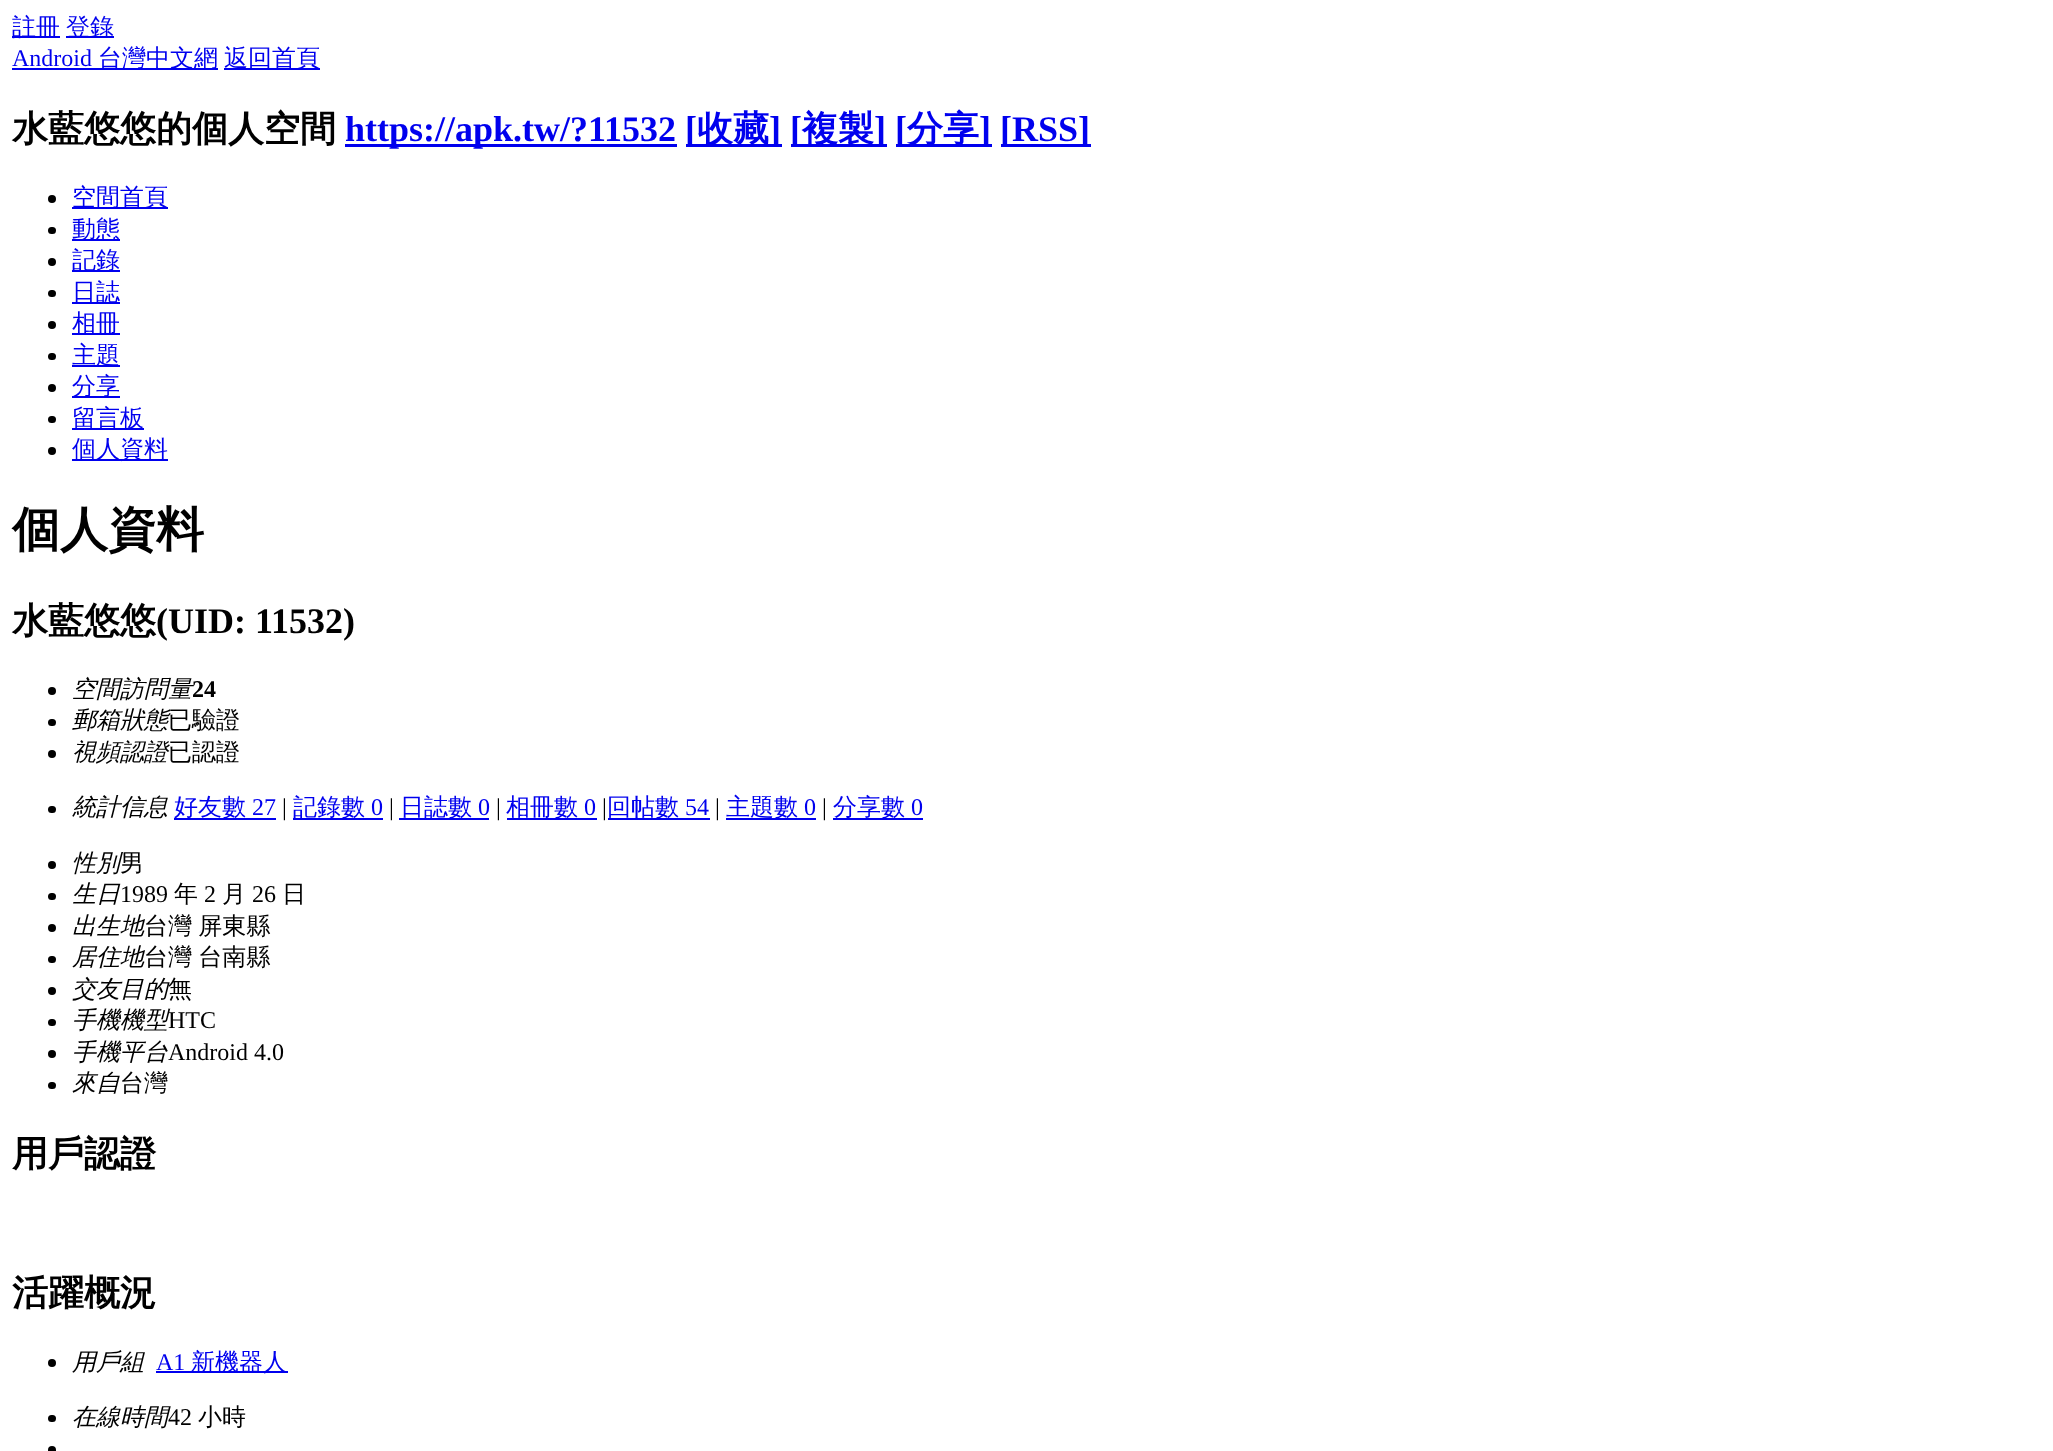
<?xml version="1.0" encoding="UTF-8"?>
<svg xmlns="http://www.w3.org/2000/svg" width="2053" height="1451">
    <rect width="100%" height="100%" fill="#FFFFFF"/>
    <rect x="12" y="36" width="48" height="2" fill="#0000EE"/>
    <text x="12" y="35" font-family="WenQuanYi Zen Hei" font-size="24" font-weight="500" fill="#0000EE">註冊</text>
    <rect x="66" y="36" width="48" height="2" fill="#0000EE"/>
    <text x="66" y="35" font-family="WenQuanYi Zen Hei" font-size="24" font-weight="500" fill="#0000EE">登錄</text>
    <text x="12" y="66" font-family="Liberation Serif" font-size="24" fill="#0000EE">Android</text>
    <rect x="12" y="68" width="206" height="2" fill="#0000EE"/>
    <text x="98" y="66" font-family="WenQuanYi Zen Hei" font-size="24" font-weight="500" fill="#0000EE">台灣中文網</text>
    <rect x="224" y="68" width="96" height="2" fill="#0000EE"/>
    <text x="224" y="66" font-family="WenQuanYi Zen Hei" font-size="24" font-weight="500" fill="#0000EE">返回首頁</text>
    <text x="12" y="141" font-family="WenQuanYi Zen Hei" font-size="36" font-weight="700" fill="#000000">水藍悠悠的個人空間</text>
    <rect x="345" y="144" width="332" height="3" fill="#0000EE"/>
    <text x="345" y="141" font-family="Liberation Serif" font-size="36" font-weight="700" fill="#0000EE">https://apk.tw/?11532</text>
    <rect x="686" y="144" width="96" height="3" fill="#0000EE"/>
    <text x="685" y="141" font-family="Liberation Serif" font-size="36" font-weight="700" fill="#0000EE">[</text>
    <text x="697" y="141" font-family="WenQuanYi Zen Hei" font-size="36" font-weight="700" fill="#0000EE">收藏</text>
    <text x="769" y="141" font-family="Liberation Serif" font-size="36" font-weight="700" fill="#0000EE">]</text>
    <rect x="791" y="144" width="96" height="3" fill="#0000EE"/>
    <text x="790" y="141" font-family="Liberation Serif" font-size="36" font-weight="700" fill="#0000EE">[</text>
    <text x="802" y="141" font-family="WenQuanYi Zen Hei" font-size="36" font-weight="700" fill="#0000EE">複製</text>
    <text x="874" y="141" font-family="Liberation Serif" font-size="36" font-weight="700" fill="#0000EE">]</text>
    <rect x="896" y="144" width="96" height="3" fill="#0000EE"/>
    <text x="895" y="141" font-family="Liberation Serif" font-size="36" font-weight="700" fill="#0000EE">[</text>
    <text x="907" y="141" font-family="WenQuanYi Zen Hei" font-size="36" font-weight="700" fill="#0000EE">分享</text>
    <text x="979" y="141" font-family="Liberation Serif" font-size="36" font-weight="700" fill="#0000EE">]</text>
    <rect x="1001" y="144" width="90" height="3" fill="#0000EE"/>
    <text x="1000" y="141" font-family="Liberation Serif" font-size="36" font-weight="700" fill="#0000EE">[RSS]</text>
    <circle cx="52" cy="199" r="4" fill="#000000"/>
    <rect x="72" y="207" width="96" height="2" fill="#0000EE"/>
    <text x="72" y="205" font-family="WenQuanYi Zen Hei" font-size="24" font-weight="500" fill="#0000EE">空間首頁</text>
    <rect x="48" y="227" width="8" height="7" rx="3.5" fill="#000000"/>
    <rect x="72" y="239" width="48" height="2" fill="#0000EE"/>
    <text x="72" y="237" font-family="WenQuanYi Zen Hei" font-size="24" font-weight="500" fill="#0000EE">動態</text>
    <circle cx="52" cy="262" r="4" fill="#000000"/>
    <rect x="72" y="270" width="48" height="2" fill="#0000EE"/>
    <text x="72" y="268" font-family="WenQuanYi Zen Hei" font-size="24" font-weight="500" fill="#0000EE">記錄</text>
    <rect x="48" y="290" width="8" height="7" rx="3.5" fill="#000000"/>
    <rect x="72" y="302" width="48" height="2" fill="#0000EE"/>
    <text x="72" y="300" font-family="WenQuanYi Zen Hei" font-size="24" font-weight="500" fill="#0000EE">日誌</text>
    <circle cx="52" cy="325" r="4" fill="#000000"/>
    <rect x="72" y="333" width="48" height="2" fill="#0000EE"/>
    <text x="72" y="331" font-family="WenQuanYi Zen Hei" font-size="24" font-weight="500" fill="#0000EE">相冊</text>
    <rect x="48" y="353" width="8" height="7" rx="3.5" fill="#000000"/>
    <rect x="72" y="365" width="48" height="2" fill="#0000EE"/>
    <text x="72" y="363" font-family="WenQuanYi Zen Hei" font-size="24" font-weight="500" fill="#0000EE">主題</text>
    <circle cx="52" cy="388" r="4" fill="#000000"/>
    <rect x="72" y="396" width="48" height="2" fill="#0000EE"/>
    <text x="72" y="394" font-family="WenQuanYi Zen Hei" font-size="24" font-weight="500" fill="#0000EE">分享</text>
    <rect x="48" y="416" width="8" height="7" rx="3.5" fill="#000000"/>
    <rect x="72" y="428" width="72" height="2" fill="#0000EE"/>
    <text x="72" y="426" font-family="WenQuanYi Zen Hei" font-size="24" font-weight="500" fill="#0000EE">留言板</text>
    <circle cx="52" cy="451" r="4" fill="#000000"/>
    <rect x="72" y="459" width="96" height="2" fill="#0000EE"/>
    <text x="72" y="457" font-family="WenQuanYi Zen Hei" font-size="24" font-weight="500" fill="#0000EE">個人資料</text>
    <text x="12" y="546" font-family="WenQuanYi Zen Hei" font-size="48" font-weight="700" fill="#000000">個人資料</text>
    <text x="12" y="633" font-family="WenQuanYi Zen Hei" font-size="36" font-weight="700" fill="#000000">水藍悠悠</text>
    <text x="156" y="633" font-family="Liberation Serif" font-size="36" font-weight="700" fill="#000000">(UID: 11532)</text>
    <circle cx="52" cy="691" r="4" fill="#000000"/>
    <text x="72" y="697" font-family="WenQuanYi Zen Hei" font-size="24" font-weight="500" font-style="italic" fill="#000000">空間訪問量</text>
    <text x="192" y="697" font-family="Liberation Serif" font-size="24" font-weight="700" fill="#000000">24</text>
    <rect x="48" y="719" width="8" height="7" rx="3.5" fill="#000000"/>
    <text x="72" y="728" font-family="WenQuanYi Zen Hei" font-size="24" font-weight="500" font-style="italic" fill="#000000">郵箱狀態</text>
    <text x="168" y="728" font-family="WenQuanYi Zen Hei" font-size="24" font-weight="500" fill="#000000">已驗證</text>
    <circle cx="52" cy="754" r="4" fill="#000000"/>
    <text x="72" y="760" font-family="WenQuanYi Zen Hei" font-size="24" font-weight="500" font-style="italic" fill="#000000">視頻認證</text>
    <text x="168" y="760" font-family="WenQuanYi Zen Hei" font-size="24" font-weight="500" fill="#000000">已認證</text>
    <rect x="48" y="806" width="8" height="7" rx="3.5" fill="#000000"/>
    <text x="72" y="815" font-family="WenQuanYi Zen Hei" font-size="24" font-weight="500" font-style="italic" fill="#000000">統計信息</text>
    <rect x="174" y="818" width="102" height="2" fill="#0000EE"/>
    <text x="174" y="815" font-family="WenQuanYi Zen Hei" font-size="24" font-weight="500" fill="#0000EE">好友數</text>
    <text x="252" y="815" font-family="Liberation Serif" font-size="24" fill="#0000EE">27</text>
    <text x="282" y="815" font-family="Liberation Serif" font-size="24" fill="#000000">|</text>
    <rect x="293" y="818" width="90" height="2" fill="#0000EE"/>
    <text x="293" y="815" font-family="WenQuanYi Zen Hei" font-size="24" font-weight="500" fill="#0000EE">記錄數</text>
    <text x="371" y="815" font-family="Liberation Serif" font-size="24" fill="#0000EE">0</text>
    <text x="389" y="815" font-family="Liberation Serif" font-size="24" fill="#000000">|</text>
    <rect x="399" y="818" width="90" height="2" fill="#0000EE"/>
    <text x="400" y="815" font-family="WenQuanYi Zen Hei" font-size="24" font-weight="500" fill="#0000EE">日誌數</text>
    <text x="478" y="815" font-family="Liberation Serif" font-size="24" fill="#0000EE">0</text>
    <text x="496" y="815" font-family="Liberation Serif" font-size="24" fill="#000000">|</text>
    <rect x="507" y="818" width="90" height="2" fill="#0000EE"/>
    <text x="506" y="815" font-family="WenQuanYi Zen Hei" font-size="24" font-weight="500" fill="#0000EE">相冊數</text>
    <text x="584" y="815" font-family="Liberation Serif" font-size="24" fill="#0000EE">0</text>
    <text x="602" y="815" font-family="Liberation Serif" font-size="24" fill="#000000">|</text>
    <rect x="608" y="818" width="102" height="2" fill="#0000EE"/>
    <text x="607" y="815" font-family="WenQuanYi Zen Hei" font-size="24" font-weight="500" fill="#0000EE">回帖數</text>
    <text x="685" y="815" font-family="Liberation Serif" font-size="24" fill="#0000EE">54</text>
    <text x="715" y="815" font-family="Liberation Serif" font-size="24" fill="#000000">|</text>
    <rect x="726" y="818" width="90" height="2" fill="#0000EE"/>
    <text x="726" y="815" font-family="WenQuanYi Zen Hei" font-size="24" font-weight="500" fill="#0000EE">主題數</text>
    <text x="804" y="815" font-family="Liberation Serif" font-size="24" fill="#0000EE">0</text>
    <text x="822" y="815" font-family="Liberation Serif" font-size="24" fill="#000000">|</text>
    <rect x="833" y="818" width="90" height="2" fill="#0000EE"/>
    <text x="833" y="815" font-family="WenQuanYi Zen Hei" font-size="24" font-weight="500" fill="#0000EE">分享數</text>
    <text x="911" y="815" font-family="Liberation Serif" font-size="24" fill="#0000EE">0</text>
    <circle cx="52" cy="865" r="4" fill="#000000"/>
    <text x="72" y="871" font-family="WenQuanYi Zen Hei" font-size="24" font-weight="500" font-style="italic" fill="#000000">性別</text>
    <text x="120" y="871" font-family="WenQuanYi Zen Hei" font-size="24" font-weight="500" fill="#000000">男</text>
    <rect x="48" y="893" width="8" height="7" rx="3.5" fill="#000000"/>
    <text x="72" y="902" font-family="WenQuanYi Zen Hei" font-size="24" font-weight="500" font-style="italic" fill="#000000">生日</text>
    <text x="120" y="902" font-family="Liberation Serif" font-size="24" fill="#000000">1989</text>
    <text x="174" y="902" font-family="WenQuanYi Zen Hei" font-size="24" font-weight="500" fill="#000000">年</text>
    <text x="204" y="902" font-family="Liberation Serif" font-size="24" fill="#000000">2</text>
    <text x="222" y="902" font-family="WenQuanYi Zen Hei" font-size="24" font-weight="500" fill="#000000">月</text>
    <text x="252" y="902" font-family="Liberation Serif" font-size="24" fill="#000000">26</text>
    <text x="282" y="902" font-family="WenQuanYi Zen Hei" font-size="24" font-weight="500" fill="#000000">日</text>
    <circle cx="52" cy="928" r="4" fill="#000000"/>
    <text x="72" y="934" font-family="WenQuanYi Zen Hei" font-size="24" font-weight="500" font-style="italic" fill="#000000">出生地</text>
    <text x="144" y="934" word-spacing="-1" font-family="WenQuanYi Zen Hei" font-size="24" font-weight="500" fill="#000000">台灣 屏東縣</text>
    <rect x="48" y="956" width="8" height="7" rx="3.5" fill="#000000"/>
    <text x="72" y="965" font-family="WenQuanYi Zen Hei" font-size="24" font-weight="500" font-style="italic" fill="#000000">居住地</text>
    <text x="144" y="965" word-spacing="-1" font-family="WenQuanYi Zen Hei" font-size="24" font-weight="500" fill="#000000">台灣 台南縣</text>
    <circle cx="52" cy="991" r="4" fill="#000000"/>
    <text x="72" y="997" font-family="WenQuanYi Zen Hei" font-size="24" font-weight="500" font-style="italic" fill="#000000">交友目的</text>
    <text x="168" y="997" font-family="WenQuanYi Zen Hei" font-size="24" font-weight="500" fill="#000000">無</text>
    <rect x="48" y="1019" width="8" height="7" rx="3.5" fill="#000000"/>
    <text x="72" y="1028" font-family="WenQuanYi Zen Hei" font-size="24" font-weight="500" font-style="italic" fill="#000000">手機機型</text>
    <text x="168" y="1028" font-family="Liberation Serif" font-size="24" fill="#000000">HTC</text>
    <circle cx="52" cy="1054" r="4" fill="#000000"/>
    <text x="72" y="1060" font-family="WenQuanYi Zen Hei" font-size="24" font-weight="500" font-style="italic" fill="#000000">手機平台</text>
    <text x="168" y="1060" font-family="Liberation Serif" font-size="24" fill="#000000">Android 4.0</text>
    <rect x="48" y="1082" width="8" height="7" rx="3.5" fill="#000000"/>
    <text x="72" y="1091" font-family="WenQuanYi Zen Hei" font-size="24" font-weight="500" font-style="italic" fill="#000000">來自</text>
    <text x="120" y="1091" font-family="WenQuanYi Zen Hei" font-size="24" font-weight="500" fill="#000000">台灣</text>
    <text x="12" y="1166" font-family="WenQuanYi Zen Hei" font-size="36" font-weight="700" fill="#000000">用戶認證</text>
    <text x="12" y="1305" font-family="WenQuanYi Zen Hei" font-size="36" font-weight="700" fill="#000000">活躍概況</text>
    <circle cx="52" cy="1363" r="4" fill="#000000"/>
    <text x="72" y="1370" font-family="WenQuanYi Zen Hei" font-size="24" font-weight="500" font-style="italic" fill="#000000">用戶組</text>
    <text x="156" y="1370" font-family="Liberation Serif" font-size="24" fill="#0000EE">A1</text>
    <rect x="156" y="1371" width="132" height="2" fill="#0000EE"/>
    <text x="191" y="1370" font-family="WenQuanYi Zen Hei" font-size="24" font-weight="500" fill="#0000EE">新機器人</text>
    <rect x="48" y="1415" width="8" height="7" rx="3.5" fill="#000000"/>
    <text x="72" y="1425" font-family="WenQuanYi Zen Hei" font-size="24" font-weight="500" font-style="italic" fill="#000000">在線時間</text>
    <text x="168" y="1425" font-family="Liberation Serif" font-size="24" fill="#000000">42</text>
    <text x="198" y="1425" font-family="WenQuanYi Zen Hei" font-size="24" font-weight="500" fill="#000000">小時</text>
    <circle cx="52" cy="1450" r="4" fill="#000000"/>
</svg>
